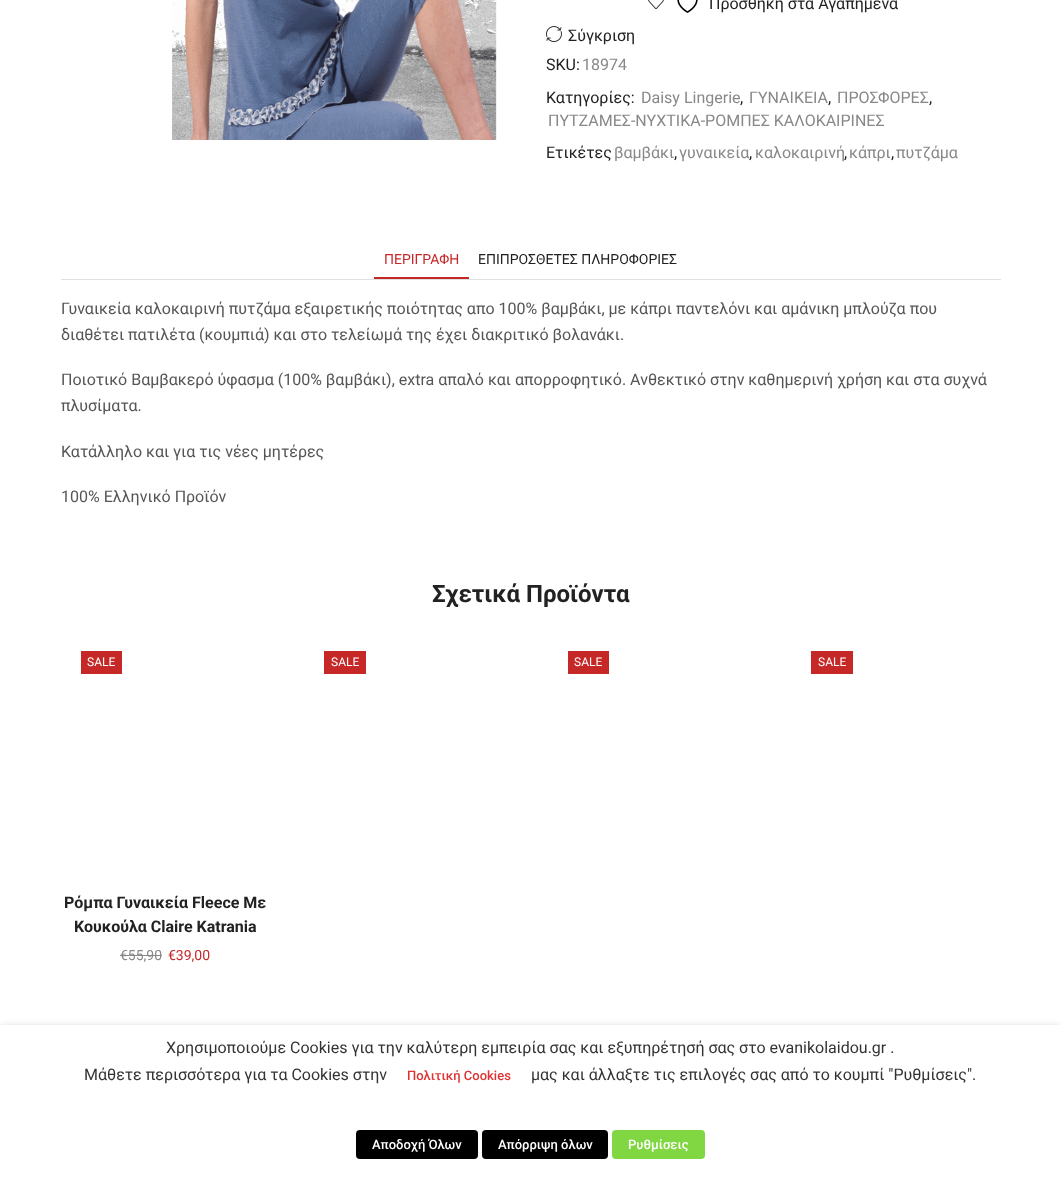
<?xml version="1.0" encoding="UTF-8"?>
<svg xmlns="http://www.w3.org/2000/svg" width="1061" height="1189">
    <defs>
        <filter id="blur1" x="-50%" y="-200%" width="200%" height="500%"><feGaussianBlur stdDeviation="5"/></filter>
    </defs>
    <rect width="100%" height="100%" fill="#FFFFFF"/>
    <image x="172" y="0" width="325" height="140" href="img_01.png"/>
    <image x="648" y="0" width="16" height="10" href="img_02.png"/>
    <image x="677" y="0" width="21" height="13" href="img_03.png"/>
    <text x="709" y="9" font-family="Roboto" font-size="16" fill="#222222">Προσθήκη στα Αγαπημένα</text>
    <image x="546" y="26" width="16" height="16" href="img_04.png"/>
    <text x="568" y="41" font-family="Roboto" font-size="16" fill="#222222">Σύγκριση</text>
    <text x="546" y="70" font-family="Roboto" font-size="16" fill="#222222">SKU:</text>
    <text x="582" y="70" font-family="Roboto" font-size="16" fill="#888888">18974</text>
    <text x="546" y="103" font-family="Roboto" font-size="16" fill="#222222">Κατηγορίες:</text>
    <text x="641" y="103" font-family="Roboto" font-size="16" fill="#888888">Daisy Lingerie</text>
    <text x="740" y="103" font-family="Roboto" font-size="16" fill="#222222">,</text>
    <text x="749" y="103" font-family="Roboto" font-size="16" fill="#888888">ΓΥΝΑΙΚΕΙΑ</text>
    <text x="828" y="103" font-family="Roboto" font-size="16" fill="#222222">,</text>
    <text x="837" y="103" font-family="Roboto" font-size="16" fill="#888888">ΠΡΟΣΦΟΡΕΣ</text>
    <text x="929" y="103" font-family="Roboto" font-size="16" fill="#222222">,</text>
    <text x="548" y="126" font-family="Roboto" font-size="16" fill="#888888">ΠΥΤΖΑΜΕΣ-ΝΥΧΤΙΚΑ-ΡΟΜΠΕΣ ΚΑΛΟΚΑΙΡΙΝΕΣ</text>
    <text x="546" y="158" font-family="Roboto" font-size="16" fill="#222222">Ετικέτες</text>
    <text x="614" y="158" font-family="Roboto" font-size="16" fill="#888888">βαμβάκι</text>
    <text x="674" y="158" font-family="Roboto" font-size="16" fill="#222222">,</text>
    <text x="679" y="158" font-family="Roboto" font-size="16" fill="#888888">γυναικεία</text>
    <text x="749" y="158" font-family="Roboto" font-size="16" fill="#222222">,</text>
    <text x="755" y="158" font-family="Roboto" font-size="16" fill="#888888">καλοκαιρινή</text>
    <text x="844" y="158" font-family="Roboto" font-size="16" fill="#222222">,</text>
    <text x="849" y="158" font-family="Roboto" font-size="16" fill="#888888">κάπρι</text>
    <text x="891" y="158" font-family="Roboto" font-size="16" fill="#222222">,</text>
    <text x="896" y="158" font-family="Roboto" font-size="16" fill="#888888">πυτζάμα</text>
    <rect x="61" y="279" width="940" height="1" fill="#E1E1E1"/>
    <text x="384" y="264" font-family="Roboto" font-size="14" fill="#C62828">ΠΕΡΙΓΡΑΦΗ</text>
    <rect x="374" y="277" width="95" height="2" fill="#C62828"/>
    <text x="478" y="264" font-family="Roboto" font-size="14" fill="#222222">ΕΠΙΠΡΟΣΘΕΤΕΣ ΠΛΗΡΟΦΟΡΙΕΣ</text>
    <text font-family="Roboto" font-size="16" fill="#555555">
        <tspan x="61" y="314">Γυναικεία καλοκαιρινή πυτζάμα εξαιρετικής ποιότητας απο 100% βαμβάκι, με κάπρι παντελόνι και αμάνικη μπλούζα που</tspan>
        <tspan x="61" y="340">διαθέτει πατιλέτα (κουμπιά) και στο τελείωμά της έχει διακριτικό βολανάκι.</tspan>
    </text>
    <text font-family="Roboto" font-size="16" fill="#555555">
        <tspan x="61" y="385">Ποιοτικό Βαμβακερό ύφασμα (100% βαμβάκι), extra απαλό και απορροφητικό. Ανθεκτικό στην καθημερινή χρήση και στα συχνά</tspan>
        <tspan x="61" y="411">πλυσίματα.</tspan>
    </text>
    <text x="61" y="457" font-family="Roboto" font-size="16" fill="#555555">Κατάλληλο και για τις νέες μητέρες</text>
    <text x="61" y="502" font-family="Roboto" font-size="16" fill="#555555">100% Ελληνικό Προϊόν</text>
    <text x="432" y="602" font-family="Roboto" font-size="24" font-weight="700" fill="#222222">Σχετικά Προϊόντα</text>
    <rect x="81" y="651" width="41" height="23" fill="#C62828"/>
    <text x="87" y="666" font-family="Roboto" font-size="12" fill="#FFFFFF">SALE</text>
    <text x="64" y="908" font-family="Roboto" font-size="16" font-weight="700" fill="#222222">Ρόμπα Γυναικεία Fleece Με</text>
    <text x="74" y="932" font-family="Roboto" font-size="16" font-weight="700" fill="#222222">Κουκούλα Claire Katrania</text>
    <text x="120" y="960" font-family="Roboto" font-size="14" fill="#888888">€55,90</text>
    <rect x="120" y="955" width="42" height="1" fill="#888888"/>
    <text x="168" y="960" font-family="Roboto" font-size="14" fill="#C62828">€39,00</text>
    <rect x="324" y="651" width="42" height="23" fill="#C62828"/>
    <text x="331" y="666" font-family="Roboto" font-size="12" fill="#FFFFFF">SALE</text>
    <rect x="568" y="651" width="41" height="23" fill="#C62828"/>
    <text x="574" y="666" font-family="Roboto" font-size="12" fill="#FFFFFF">SALE</text>
    <rect x="811" y="651" width="42" height="23" fill="#C62828"/>
    <text x="818" y="666" font-family="Roboto" font-size="12" fill="#FFFFFF">SALE</text>
    <rect x="0" y="1030" width="1061" height="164" fill="#000000" fill-opacity="0.5" filter="url(#blur1)"/>
    <rect x="0" y="1025" width="1061" height="164" fill="#FFFFFF"/>
    <text x="166" y="1053" font-family="Roboto" font-size="16" fill="#333333">Xρησιμοποιούμε Cookies για την καλύτερη εμπειρία σας και εξυπηρέτησή σας στο evanikolaidou.gr .</text>
    <text x="84" y="1080" font-family="Roboto" font-size="16" fill="#333333">Μάθετε περισσότερα για τα Cookies στην</text>
    <text x="407" y="1080" font-family="Roboto" font-size="13" font-weight="500" fill="#DD3333">Πολιτική Cookies</text>
    <text x="531" y="1080" font-family="Roboto" font-size="16" fill="#333333">μας και άλλαξτε τις επιλογές σας από το κουμπί "Ρυθμίσεις".</text>
    <rect x="356" y="1130" width="122" height="29" rx="4" fill="#000000"/>
    <text x="372" y="1149" font-family="Roboto" font-size="13" font-weight="500" fill="#FFFFFF">Αποδοχή Όλων</text>
    <rect x="482" y="1130" width="126" height="29" rx="4" fill="#000000"/>
    <text x="498" y="1149" font-family="Roboto" font-size="13" font-weight="500" fill="#FFFFFF">Απόρριψη όλων</text>
    <rect x="612" y="1130" width="93" height="29" rx="4" fill="#81D742"/>
    <text x="628" y="1149" font-family="Roboto" font-size="13" font-weight="500" fill="#FFFFFF">Ρυθμίσεις</text>
</svg>
